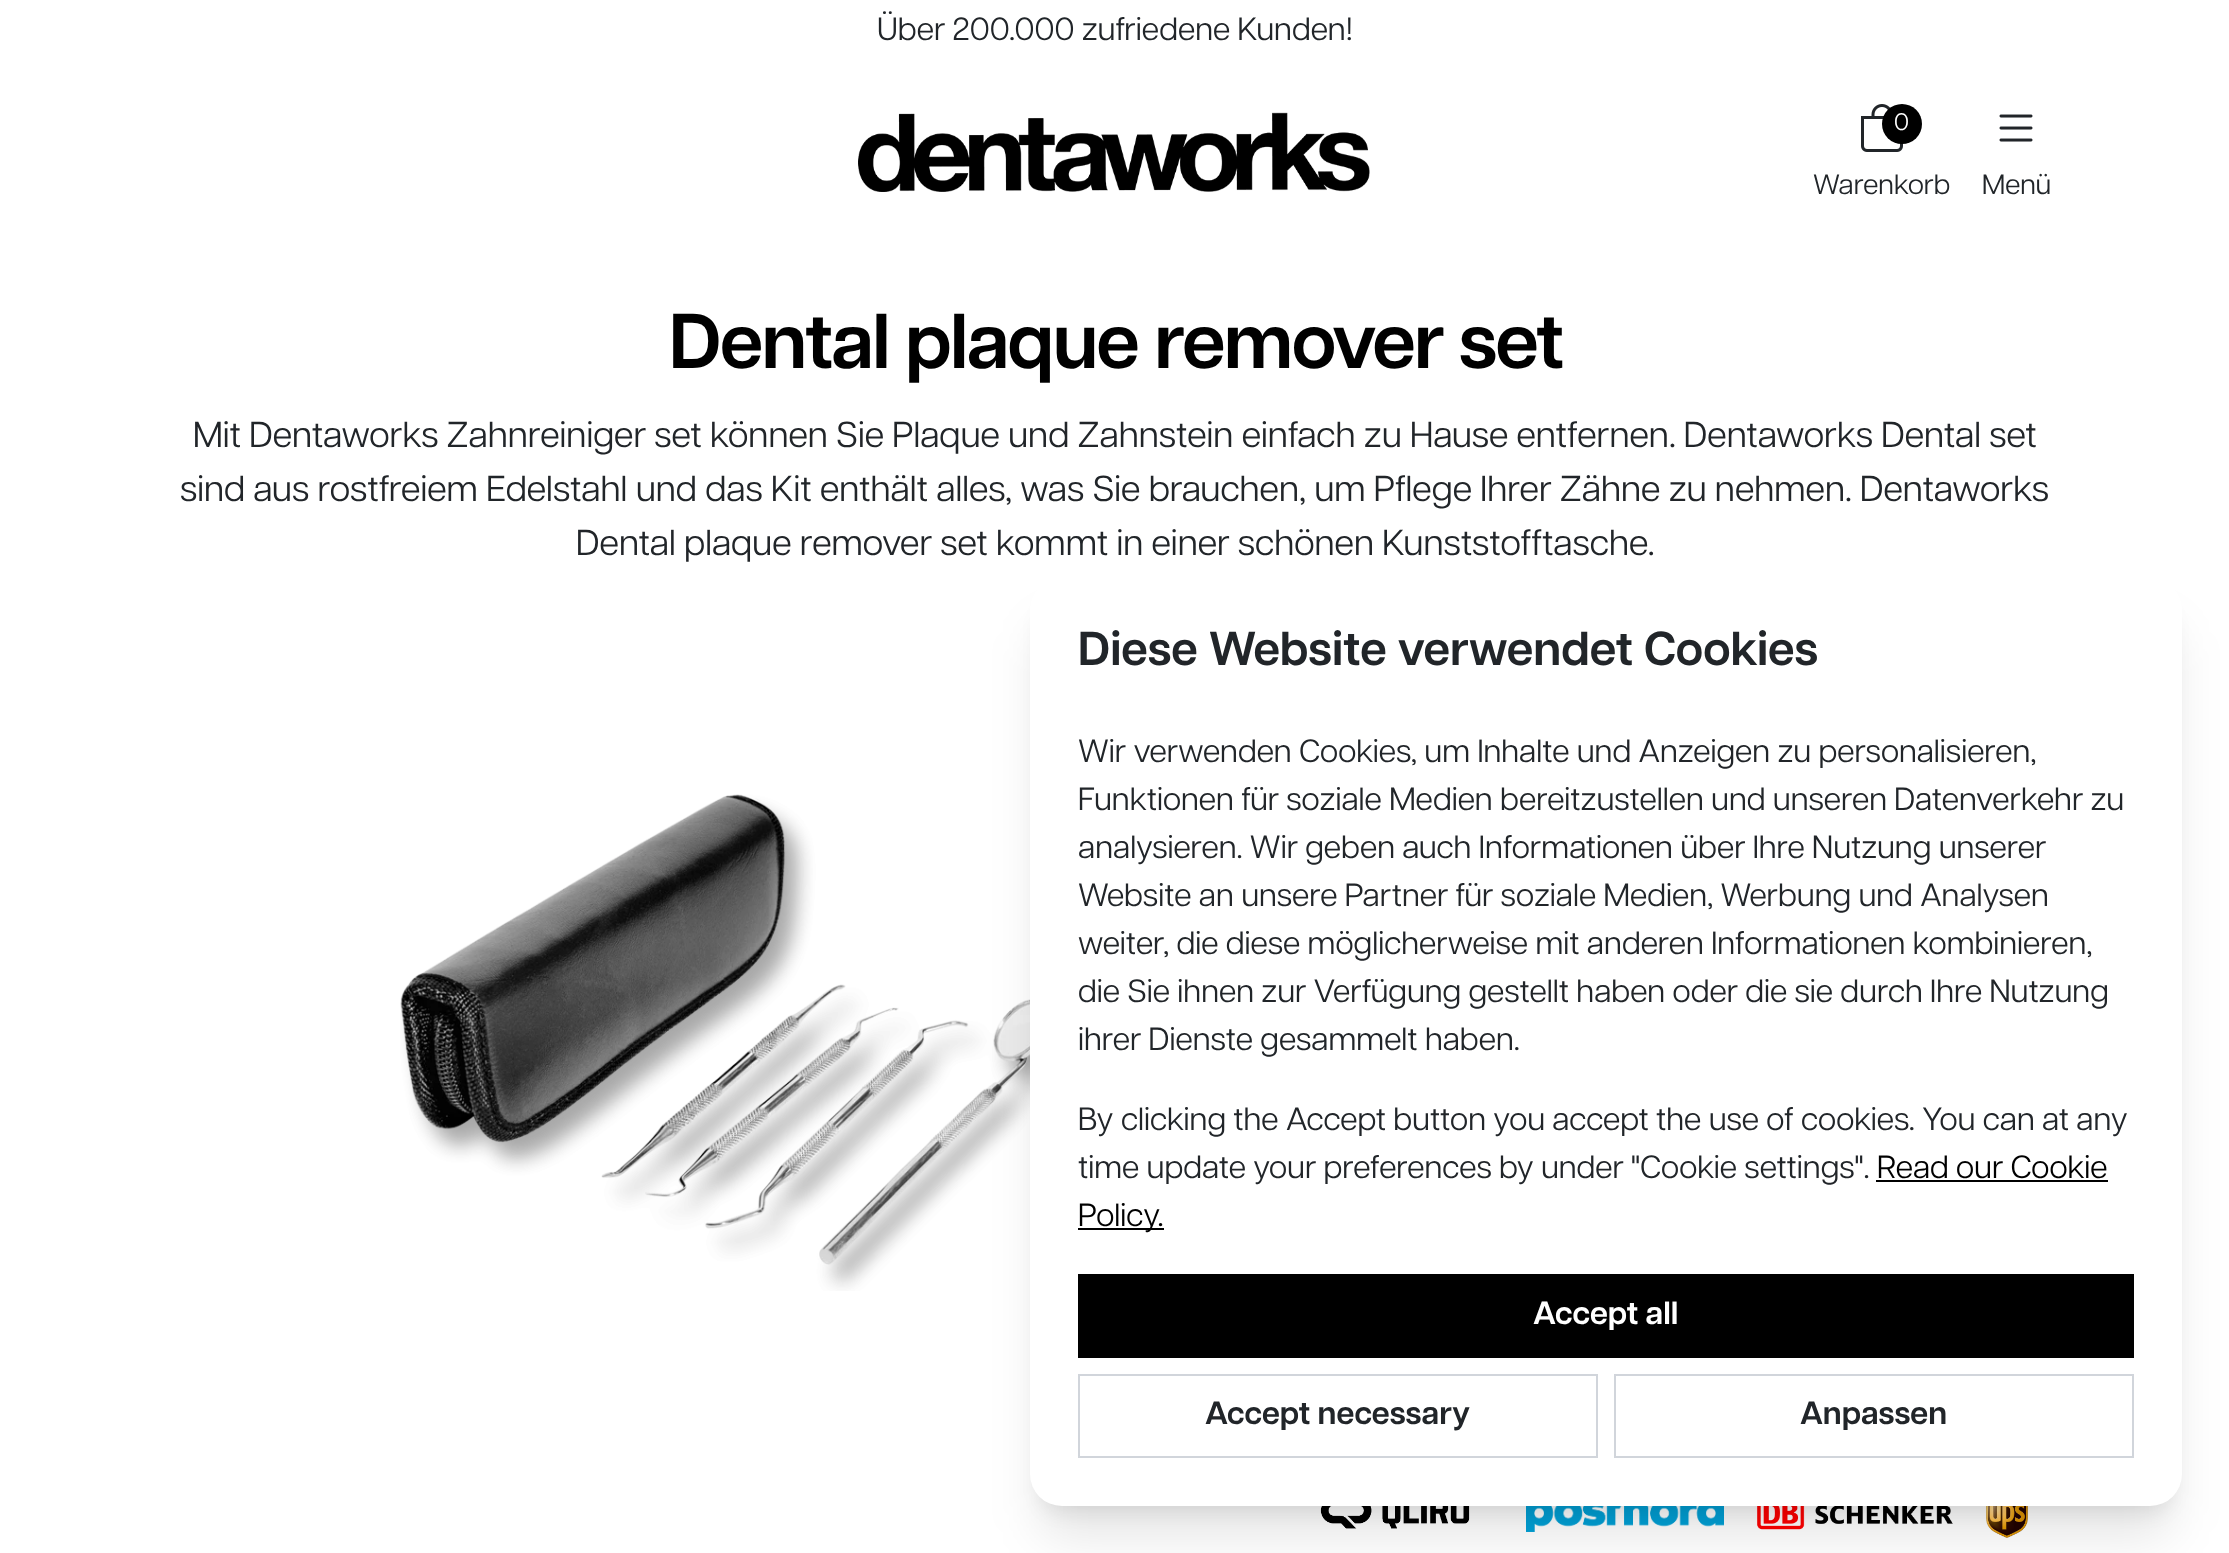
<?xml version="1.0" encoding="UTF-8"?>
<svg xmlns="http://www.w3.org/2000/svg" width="2229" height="1553">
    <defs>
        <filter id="blur1" x="-50%" y="-200%" width="200%" height="500%"><feGaussianBlur stdDeviation="10"/></filter>
        <filter id="blur2" x="-50%" y="-200%" width="200%" height="500%"><feGaussianBlur stdDeviation="25"/></filter>
    </defs>
    <rect width="100%" height="100%" fill="#FFFFFF"/>
    <text x="877" y="40" font-family="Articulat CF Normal" font-size="32" fill="#212529">Über 200.000 zufriedene Kunden!</text>
    <image x="858" y="112" width="512" height="80" href="img_01.png"/>
    <image x="1861" y="104" width="42" height="48" href="img_02.png"/>
    <circle cx="1902" cy="124" r="20" fill="#000000"/>
    <text x="1894" y="130" font-family="Articulat CF Normal" font-size="24" fill="#FFFFFF">0</text>
    <text x="1813" y="194" font-family="Articulat CF Normal" font-size="28" fill="#212529">Warenkorb</text>
    <image x="1999" y="114" width="34" height="28" href="img_03.png"/>
    <text x="1982" y="194" font-family="Articulat CF Normal" font-size="28" fill="#212529">Menü</text>
    <text x="669" y="368" font-family="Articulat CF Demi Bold" font-size="77.5" font-weight="600" letter-spacing="-1.6" fill="#000000">Dental plaque remover set</text>
    <text x="193" y="447" font-family="Articulat CF Normal" font-size="36" fill="#212529">Mit Dentaworks Zahnreiniger set können Sie Plaque und Zahnstein einfach zu Hause entfernen. Dentaworks Dental set</text>
    <text x="180" y="501" font-family="Articulat CF Normal" font-size="36" fill="#212529">sind aus rostfreiem Edelstahl und das Kit enthält alles, was Sie brauchen, um Pflege Ihrer Zähne zu nehmen. Dentaworks</text>
    <text x="576" y="555" font-family="Articulat CF Normal" font-size="36" fill="#212529">Dental plaque remover set kommt in einer schönen Kunststofftasche.</text>
    <image x="400" y="794" width="630" height="497" href="img_04.png"/>
    <image x="1320" y="1506" width="150" height="23" href="img_05.png"/>
    <image x="1526" y="1506" width="198" height="26" href="img_06.png"/>
    <image x="1757" y="1506" width="196" height="24" href="img_07.png"/>
    <image x="1986" y="1506" width="42" height="32" href="img_08.png"/>
    <rect x="1042" y="606" width="1128" height="904" rx="20" fill="#000000" fill-opacity="0.1" filter="url(#blur1)"/>
    <rect x="1040" y="628" width="1132" height="908" rx="22" fill="#000000" fill-opacity="0.1" filter="url(#blur2)"/>
    <rect x="1030" y="578" width="1152" height="928" rx="32" fill="#FFFFFF"/>
    <text x="1078" y="665" font-family="Articulat CF Demi Bold" font-size="47.5" font-weight="600" fill="#212529">Diese Website verwendet Cookies</text>
    <text font-family="Articulat CF Normal" font-size="32" fill="#212529">
        <tspan x="1078" y="762">Wir verwenden Cookies, um Inhalte und Anzeigen zu personalisieren,</tspan>
        <tspan x="1078" y="810">Funktionen für soziale Medien bereitzustellen und unseren Datenverkehr zu</tspan>
        <tspan x="1078" y="858">analysieren. Wir geben auch Informationen über Ihre Nutzung unserer</tspan>
        <tspan x="1078" y="906">Website an unsere Partner für soziale Medien, Werbung und Analysen</tspan>
        <tspan x="1078" y="954">weiter, die diese möglicherweise mit anderen Informationen kombinieren,</tspan>
        <tspan x="1078" y="1002">die Sie ihnen zur Verfügung gestellt haben oder die sie durch Ihre Nutzung</tspan>
        <tspan x="1078" y="1050">ihrer Dienste gesammelt haben.</tspan>
    </text>
    <text font-family="Articulat CF Normal" font-size="32" fill="#212529">
        <tspan x="1078" y="1130">By clicking the Accept button you accept the use of cookies. You can at any</tspan>
        <tspan x="1078" y="1178">time update your preferences by under "Cookie settings".</tspan>
    </text>
    <text x="1877" y="1178" font-family="Articulat CF Normal" font-size="32" fill="#000000">Read our Cookie</text>
    <rect x="1876" y="1180" width="232" height="2" fill="#000000"/>
    <rect x="1078" y="1228" width="86" height="2" fill="#000000"/>
    <text x="1078" y="1226" font-family="Articulat CF Normal" font-size="32" fill="#000000">Policy.</text>
    <rect x="1078" y="1274" width="1056" height="84" fill="#000000"/>
    <text x="1533" y="1324" font-family="Articulat CF Demi Bold" font-size="32" font-weight="600" fill="#FFFFFF">Accept all</text>
    <rect x="1079" y="1375" width="518" height="82" fill="none" stroke="#D1D5DB" stroke-width="2"/>
    <text x="1205" y="1424" font-family="Articulat CF Demi Bold" font-size="32" font-weight="600" fill="#212529">Accept necessary</text>
    <rect x="1615" y="1375" width="518" height="82" fill="none" stroke="#D1D5DB" stroke-width="2"/>
    <text x="1800" y="1424" font-family="Articulat CF Demi Bold" font-size="32" font-weight="600" fill="#212529">Anpassen</text>
</svg>
